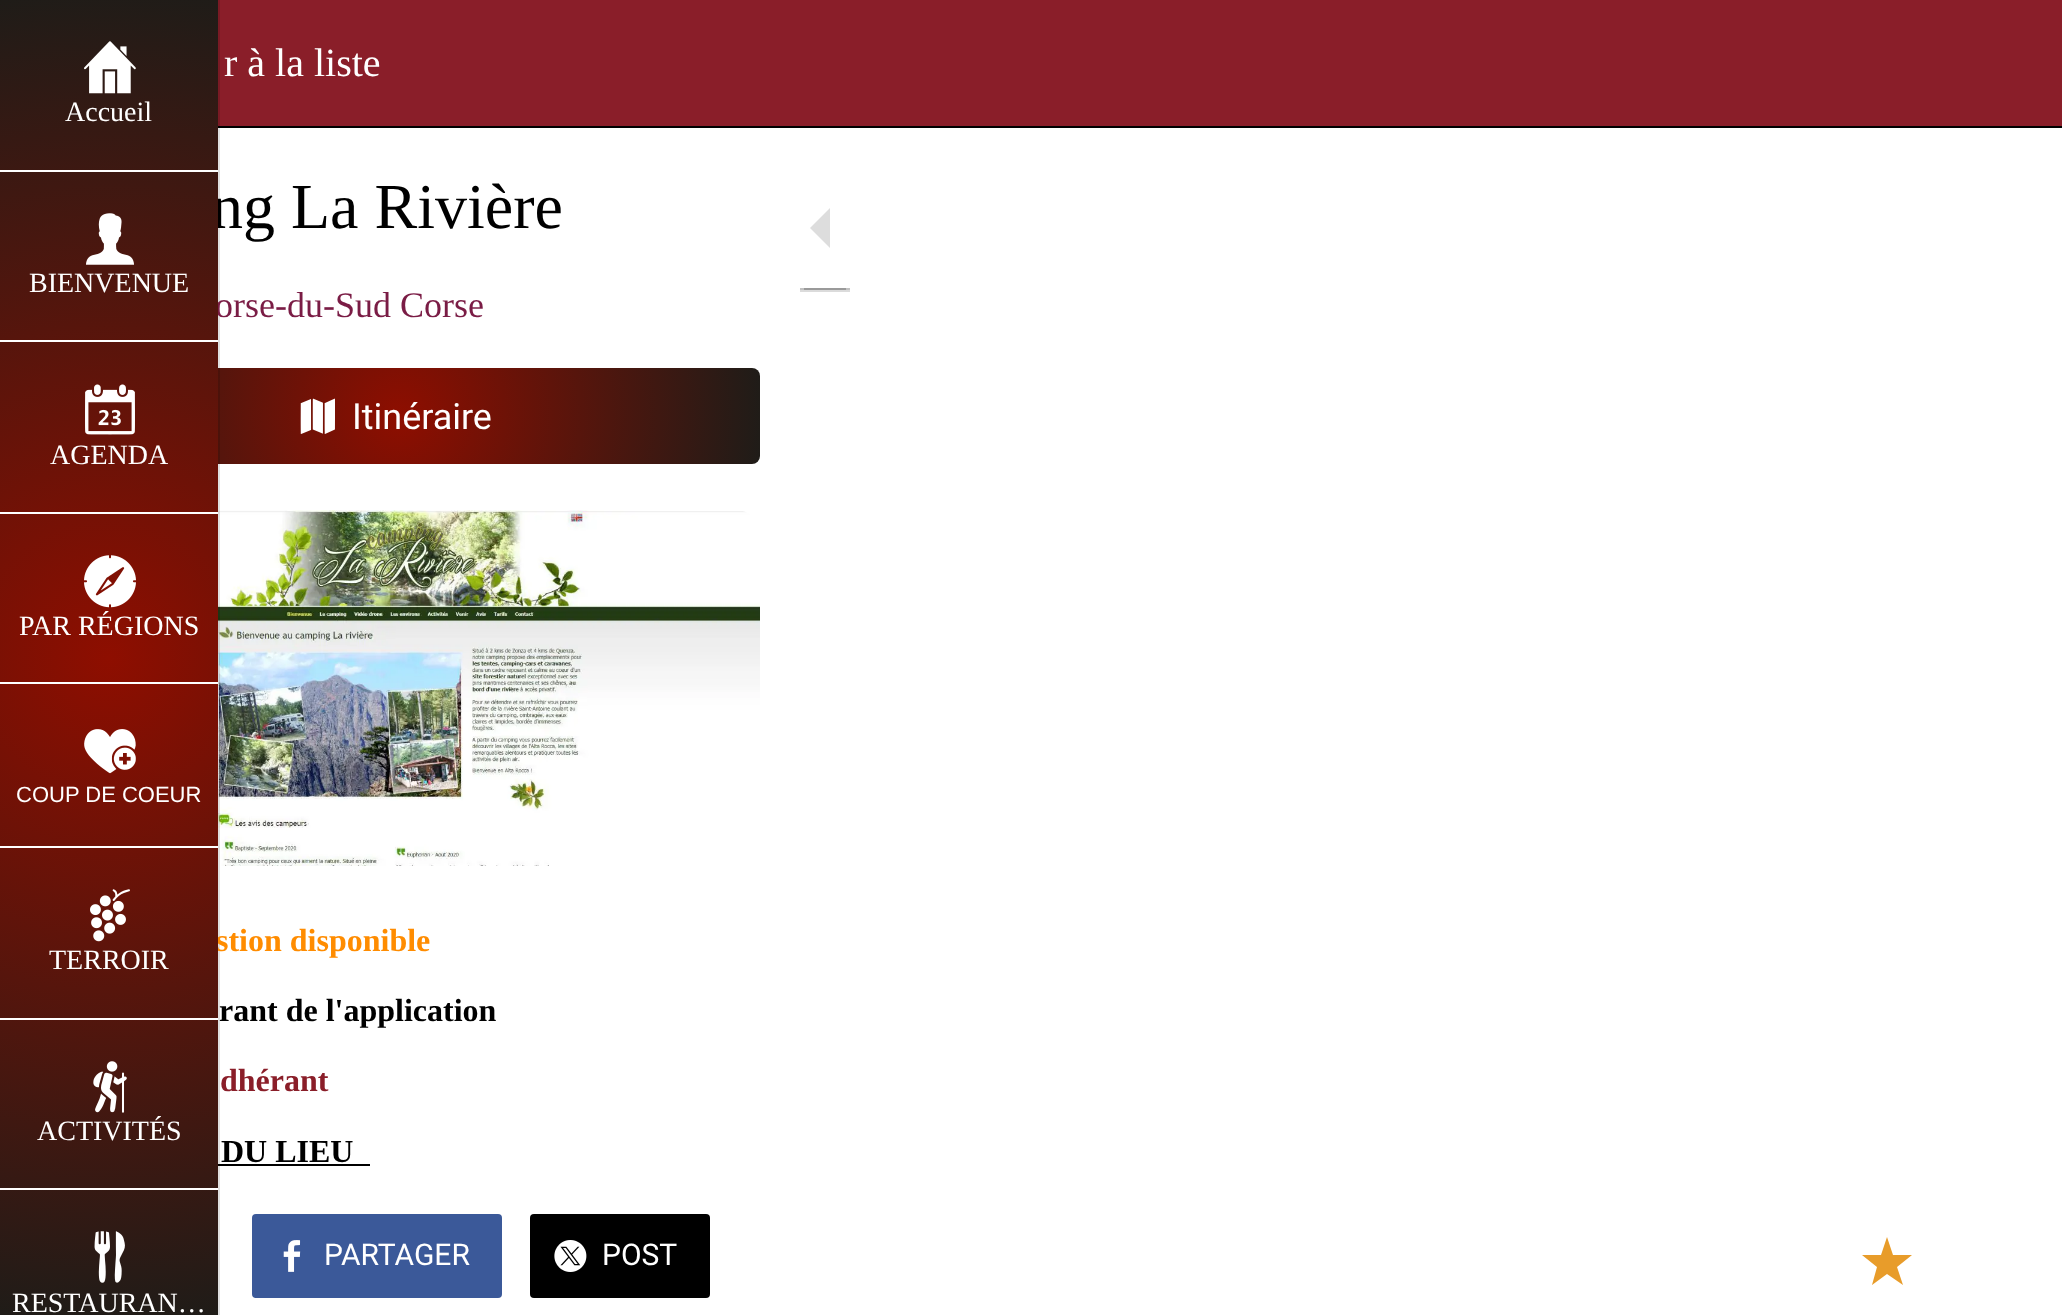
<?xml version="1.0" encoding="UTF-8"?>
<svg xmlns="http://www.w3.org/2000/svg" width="2062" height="1315">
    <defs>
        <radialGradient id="g1" gradientUnits="userSpaceOnUse" cx="400" cy="416" r="363"><stop offset="0" stop-color="#8E0E00"/><stop offset="1" stop-color="#1F1C18"/></radialGradient>
        <radialGradient id="g2" gradientUnits="userSpaceOnUse" cx="109" cy="658" r="667"><stop offset="0" stop-color="#8E0E00"/><stop offset="1" stop-color="#1F1C18"/></radialGradient>
    </defs>
    <rect width="100%" height="100%" fill="#FFFFFF"/>
    <rect x="800" y="290" width="50" height="2" fill="#DBDBDB"/>
    <rect x="218" y="0" width="1844" height="126" fill="#8A1E29"/>
    <rect x="218" y="126" width="1844" height="2" fill="#000000"/>
    <rect x="40" y="368" width="720" height="96" rx="8" fill="url(#g1)"/>
    <image x="218" y="510" width="542" height="356" href="img_10.png"/>
    <rect x="218" y="1164" width="152" height="2" fill="#000000"/>
    <rect x="218" y="0" width="2" height="1315" fill="#000000" fill-opacity="0.12"/>
    <text x="211" y="228" font-family="Liberation Serif" font-size="64" fill="#000000">ng La Rivière</text>
    <text x="215" y="317" font-family="Liberation Serif" font-size="36" fill="#7A1C45">orse-du-Sud Corse</text>
    <text x="216" y="951" font-family="Liberation Serif" font-size="32" font-weight="700" fill="#FF8C00">stion disponible</text>
    <rect x="0" y="0" width="218" height="1315" fill="url(#g2)"/>
    <rect x="0" y="170" width="218" height="2" fill="#FFFFFF"/>
    <image x="84" y="41" width="52" height="53" href="img_01.png"/>
    <text x="65" y="121" font-family="Liberation Serif" font-size="28" fill="#FFFFFF">Accueil</text>
    <rect x="0" y="340" width="218" height="2" fill="#FFFFFF"/>
    <image x="86" y="213" width="48" height="52" href="img_02.png"/>
    <text x="29" y="292" font-family="Liberation Serif" font-size="28" fill="#FFFFFF">BIENVENUE</text>
    <rect x="0" y="512" width="218" height="2" fill="#FFFFFF"/>
    <image x="85" y="384" width="50" height="51" href="img_03.png"/>
    <text x="50" y="464" font-family="Liberation Serif" font-size="28" fill="#FFFFFF">AGENDA</text>
    <rect x="0" y="682" width="218" height="2" fill="#FFFFFF"/>
    <image x="84" y="555" width="52" height="53" href="img_04.png"/>
    <text x="19" y="635" font-family="Liberation Serif" font-size="28" fill="#FFFFFF">PAR RÉGIONS</text>
    <rect x="0" y="846" width="218" height="2" fill="#FFFFFF"/>
    <image x="84" y="729" width="52" height="45" href="img_05.png"/>
    <text x="16" y="802" font-family="Liberation Sans" font-size="22" fill="#FFFFFF">COUP DE COEUR</text>
    <rect x="0" y="1018" width="218" height="2" fill="#FFFFFF"/>
    <image x="90" y="889" width="40" height="53" href="img_06.png"/>
    <text x="49" y="969" font-family="Liberation Serif" font-size="28" fill="#FFFFFF">TERROIR</text>
    <rect x="0" y="1188" width="218" height="2" fill="#FFFFFF"/>
    <image x="93" y="1061" width="34" height="52" href="img_07.png"/>
    <text x="37" y="1140" font-family="Liberation Serif" font-size="28" fill="#FFFFFF">ACTIVITÉS</text>
    <image x="94" y="1231" width="31" height="52" href="img_08.png"/>
    <text x="12" y="1312" font-family="Liberation Serif" font-size="28" fill="#FFFFFF">RESTAURAN…</text>
    <text x="224" y="76" font-family="Liberation Serif" font-size="40" fill="#FFFFFF">r à la liste</text>
    <image x="300" y="398" width="35" height="36" href="img_09.png"/>
    <text x="352" y="429" font-family="Roboto" font-size="36" fill="#FFFFFF">Itinéraire</text>
    <text x="219" y="1021" font-family="Liberation Serif" font-size="32" font-weight="700" fill="#000000">rant de l'application</text>
    <text x="220" y="1091" font-family="Liberation Serif" font-size="32" font-weight="700" fill="#8A1E29">dhérant</text>
    <text x="221" y="1162" font-family="Liberation Serif" font-size="32" font-weight="700" fill="#000000">DU LIEU</text>
    <rect x="252" y="1214" width="250" height="84" rx="4" fill="#3B5999"/>
    <image x="283" y="1240" width="18" height="32" href="img_11.png"/>
    <text x="324" y="1265" font-family="Roboto" font-size="30" fill="#FFFFFF">PARTAGER</text>
    <rect x="530" y="1214" width="180" height="84" rx="4" fill="#000000"/>
    <image x="554" y="1240" width="33" height="32" href="img_12.png"/>
    <text x="602" y="1265" font-family="Roboto" font-size="30" fill="#FFFFFF">POST</text>
    <path d="M 1912 1255 H 1893 L 1887 1237 L 1881 1255 H 1862 L 1877 1267 L 1872 1285 L 1887 1274 L 1903 1285 L 1897 1267 Z" fill="#E89C2A"/>
    <rect x="800" y="288" width="50" height="2" fill="#C1C1C1"/>
    <rect x="804" y="288" width="42" height="2" fill="#9A9A9A"/>
    <path d="M 830 208 V 248 L 810 228 Z" fill="#DDDDDD"/>
</svg>
